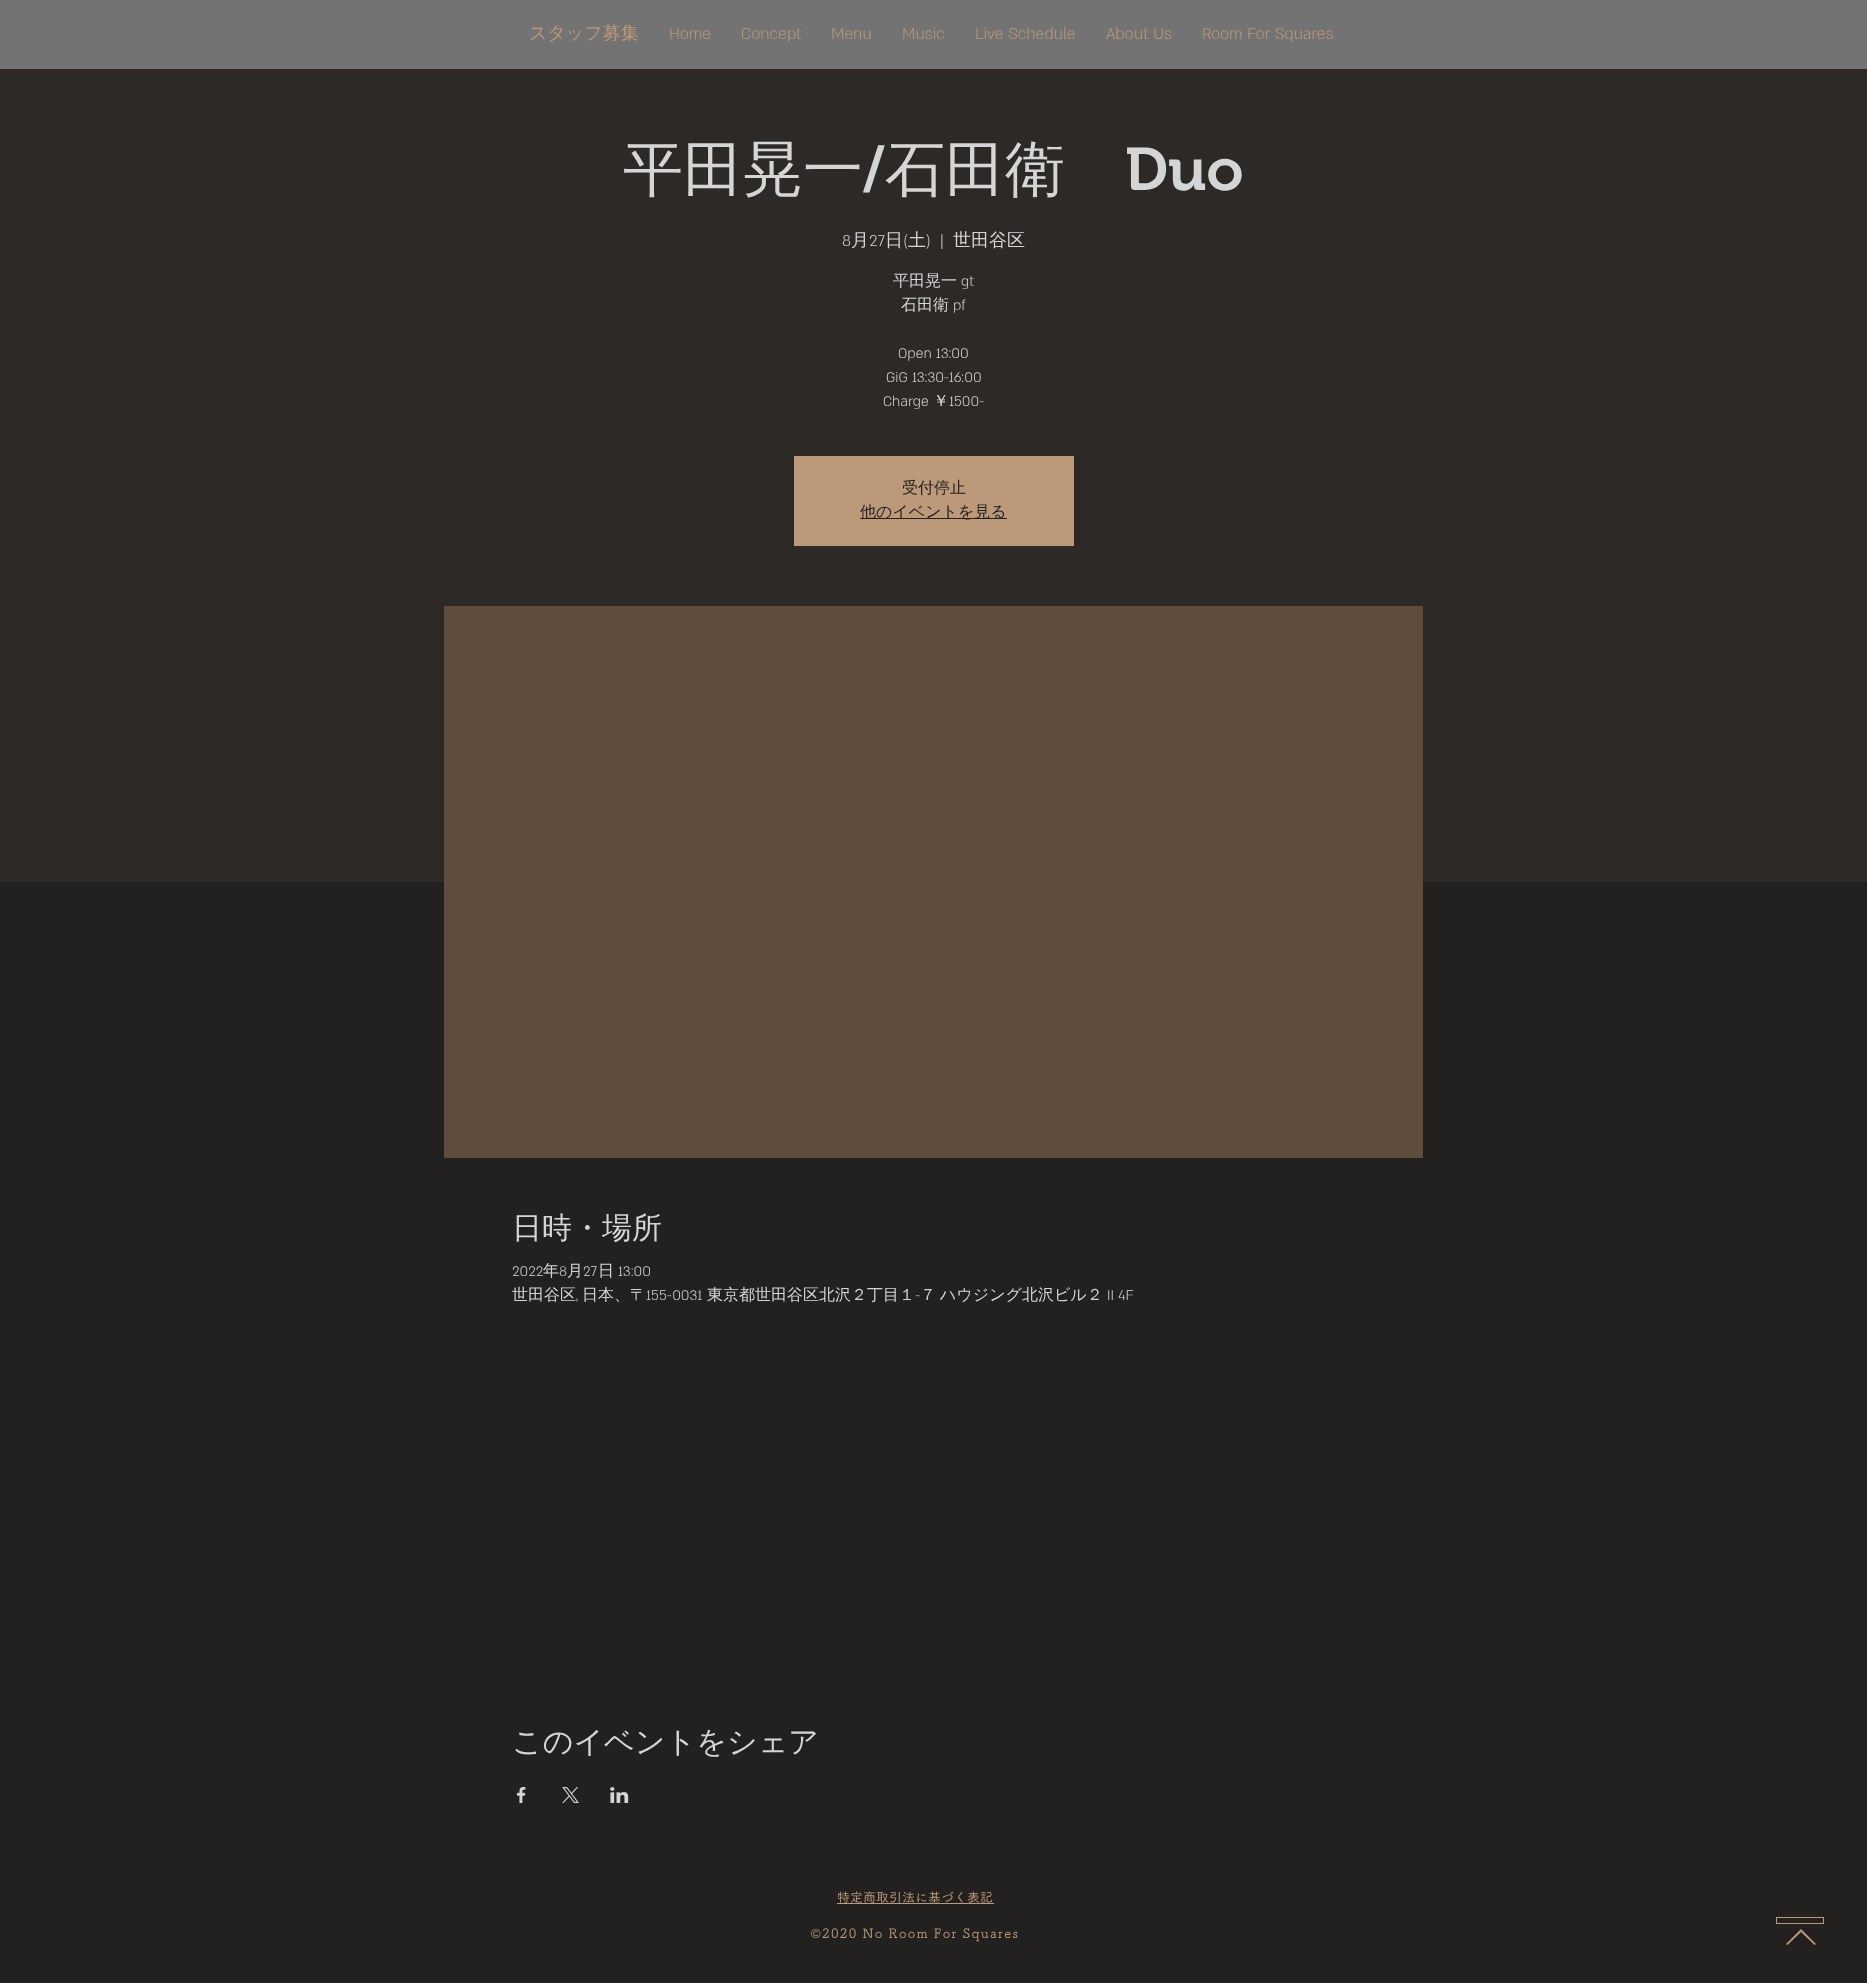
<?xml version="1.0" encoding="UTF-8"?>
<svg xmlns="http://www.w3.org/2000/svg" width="1867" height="1983">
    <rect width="100%" height="100%" fill="#222120"/>
    <rect x="0" y="0" width="1867" height="69" fill="#747373"/>
    <text x="529" y="39" font-family="WenQuanYi Zen Hei" font-size="18" font-weight="500" fill="#BC9979">スタッフ募集</text>
    <text x="669" y="39" font-family="'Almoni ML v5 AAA'" font-size="18" font-weight="300" fill="#BC9979">Home</text>
    <text x="741" y="39" font-family="'Almoni ML v5 AAA'" font-size="18" font-weight="300" fill="#BC9979">Concept</text>
    <text x="831" y="39" font-family="'Almoni ML v5 AAA'" font-size="18" font-weight="300" fill="#BC9979">Menu</text>
    <text x="902" y="39" font-family="'Almoni ML v5 AAA'" font-size="18" font-weight="300" fill="#BC9979">Music</text>
    <text x="975" y="39" font-family="'Almoni ML v5 AAA'" font-size="18" font-weight="300" fill="#BC9979">Live Schedule</text>
    <text x="1106" y="39" font-family="'Almoni ML v5 AAA'" font-size="18" font-weight="300" fill="#BC9979">About Us</text>
    <text x="1202" y="39" font-family="'Almoni ML v5 AAA'" font-size="18" font-weight="300" fill="#BC9979">Room For Squares</text>
    <rect x="0" y="69" width="1867" height="813" fill="#2D2926"/>
    <text x="623" y="190" font-family="WenQuanYi Zen Hei" font-size="60" font-weight="500" fill="#D5D5D5">平田晃一</text>
    <text x="863" y="190" font-family="'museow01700'" font-size="60" font-weight="600" fill="#D5D5D5">/</text>
    <text x="885" y="190" font-family="WenQuanYi Zen Hei" font-size="60" font-weight="500" fill="#D5D5D5">石田衛</text>
    <text x="1125" y="190" font-family="'museow01700'" font-size="60" font-weight="600" fill="#D5D5D5">Duo</text>
    <text x="842" y="246" font-family="'Almoni ML v5 AAA'" font-size="18" font-weight="300" fill="#D5D5D5">8</text>
    <text x="851" y="246" font-family="WenQuanYi Zen Hei" font-size="18" font-weight="500" fill="#D5D5D5">月</text>
    <text x="869" y="246" font-family="'Almoni ML v5 AAA'" font-size="18" font-weight="300" fill="#D5D5D5">27</text>
    <text x="885" y="246" font-family="WenQuanYi Zen Hei" font-size="18" font-weight="500" fill="#D5D5D5">日</text>
    <text x="903" y="246" font-family="'Almoni ML v5 AAA'" font-size="18" font-weight="300" fill="#D5D5D5">(</text>
    <text x="908" y="246" font-family="WenQuanYi Zen Hei" font-size="18" font-weight="500" fill="#D5D5D5">土</text>
    <text x="926" y="246" font-family="'Almoni ML v5 AAA'" font-size="18" font-weight="300" fill="#D5D5D5">)</text>
    <text x="940" y="246" font-family="'Almoni ML v5 AAA'" font-size="18" font-weight="300" fill="#D5D5D5">|</text>
    <text x="953" y="246" font-family="WenQuanYi Zen Hei" font-size="18" font-weight="500" fill="#D5D5D5">世田谷区</text>
    <text x="893" y="286" font-family="WenQuanYi Zen Hei" font-size="16" font-weight="500" fill="#D5D5D5">平田晃一</text>
    <text x="961" y="286" font-family="'Almoni ML v5 AAA'" font-size="16" font-weight="300" fill="#D5D5D5">gt</text>
    <text x="901" y="310" font-family="WenQuanYi Zen Hei" font-size="16" font-weight="500" fill="#D5D5D5">石田衛</text>
    <text x="953" y="310" font-family="'Almoni ML v5 AAA'" font-size="16" font-weight="300" fill="#D5D5D5">pf</text>
    <text x="898" y="358" font-family="'Almoni ML v5 AAA'" font-size="16" font-weight="300" fill="#D5D5D5">Open 13:00</text>
    <text x="886" y="382" font-family="'Almoni ML v5 AAA'" font-size="16" font-weight="300" fill="#D5D5D5">GiG 13:30-16:00</text>
    <text x="883" y="406" font-family="'Almoni ML v5 AAA'" font-size="16" font-weight="300" fill="#D5D5D5">Charge</text>
    <text x="933" y="406" font-family="WenQuanYi Zen Hei" font-size="16" font-weight="500" fill="#D5D5D5">￥</text>
    <text x="949" y="406" font-family="'Almoni ML v5 AAA'" font-size="16" font-weight="300" fill="#D5D5D5">1500-</text>
    <rect x="794" y="456" width="280" height="90" fill="#BC9979"/>
    <text x="902" y="493" font-family="WenQuanYi Zen Hei" font-size="16" font-weight="500" fill="#222120">受付停止</text>
    <rect x="860" y="518" width="147" height="1" fill="#222120"/>
    <text x="860" y="517" font-family="WenQuanYi Zen Hei" font-size="16" font-weight="500" fill="#222120">他のイベントを見る</text>
    <rect x="444" y="606" width="979" height="552" fill="#5E4D3D"/>
    <text x="512" y="1238" font-family="WenQuanYi Zen Hei" font-size="30" font-weight="500" fill="#D5D5D5">日時・場所</text>
    <text x="512" y="1276" font-family="'Almoni ML v5 AAA'" font-size="16" font-weight="300" fill="#D5D5D5">2022</text>
    <text x="543" y="1276" font-family="WenQuanYi Zen Hei" font-size="16" font-weight="500" fill="#D5D5D5">年</text>
    <text x="559" y="1276" font-family="'Almoni ML v5 AAA'" font-size="16" font-weight="300" fill="#D5D5D5">8</text>
    <text x="567" y="1276" font-family="WenQuanYi Zen Hei" font-size="16" font-weight="500" fill="#D5D5D5">月</text>
    <text x="583" y="1276" font-family="'Almoni ML v5 AAA'" font-size="16" font-weight="300" fill="#D5D5D5">27</text>
    <text x="598" y="1276" font-family="WenQuanYi Zen Hei" font-size="16" font-weight="500" fill="#D5D5D5">日</text>
    <text x="618" y="1276" font-family="'Almoni ML v5 AAA'" font-size="16" font-weight="300" fill="#D5D5D5">13:00</text>
    <text x="512" y="1300" font-family="WenQuanYi Zen Hei" font-size="16" font-weight="500" fill="#D5D5D5">世田谷区</text>
    <text x="582" y="1300" font-family="WenQuanYi Zen Hei" font-size="16" font-weight="500" fill="#D5D5D5">日本、〒</text>
    <text x="646" y="1300" font-family="'Almoni ML v5 AAA'" font-size="16" font-weight="300" fill="#D5D5D5">155-0031</text>
    <text x="707" y="1300" font-family="WenQuanYi Zen Hei" font-size="16" font-weight="500" fill="#D5D5D5">東京都世田谷区北沢２丁目１</text>
    <text x="915" y="1300" font-family="'Almoni ML v5 AAA'" font-size="16" font-weight="300" fill="#D5D5D5">−</text>
    <text x="920" y="1300" font-family="WenQuanYi Zen Hei" font-size="16" font-weight="500" fill="#D5D5D5">７</text>
    <text x="940" y="1300" font-family="WenQuanYi Zen Hei" font-size="16" font-weight="500" fill="#D5D5D5">ハウジング北沢ビル２</text>
    <text x="1107" y="1300" font-family="'Almoni ML v5 AAA'" font-size="16" font-weight="300" fill="#D5D5D5">II 4F</text>
    <text x="576" y="1300" font-family="'Almoni ML v5 AAA'" font-size="16" font-weight="300" fill="#D5D5D5">,</text>
    <text x="512" y="1752" font-family="WenQuanYi Zen Hei" font-size="30" font-weight="500" fill="#D5D5D5">このイベントをシェア</text>
    <image x="517" y="1787" width="9" height="16" href="img_01.png"/>
    <image x="562" y="1787" width="17" height="16" href="img_02.png"/>
    <image x="610" y="1787" width="19" height="16" href="img_03.png"/>
    <text x="837" y="1902" font-family="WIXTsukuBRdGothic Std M" font-size="13" font-weight="500" fill="#BC9979">特定商取引法に基づく表記</text>
    <rect x="837" y="1903" width="157" height="1" fill="#BC9979"/>
    <text x="811" y="1938" font-family="Liberation Sans" font-size="13" letter-spacing="1.3" fill="#BC9979">©</text>
    <text x="822" y="1938" font-family="WIXTsukuBRdGothic Std M" font-size="13" font-weight="500" letter-spacing="1.3" fill="#BC9979">2020 No Room For Squares</text>
    <rect x="1776.5" y="1917.5" width="47" height="6" fill="none" stroke="#BC9979"/>
    <path d="M 1786 1944 L 1787.5 1945 L 1801 1932 L 1814.5 1945 L 1816 1944 L 1801 1929 Z" fill="#BC9979"/>
</svg>
